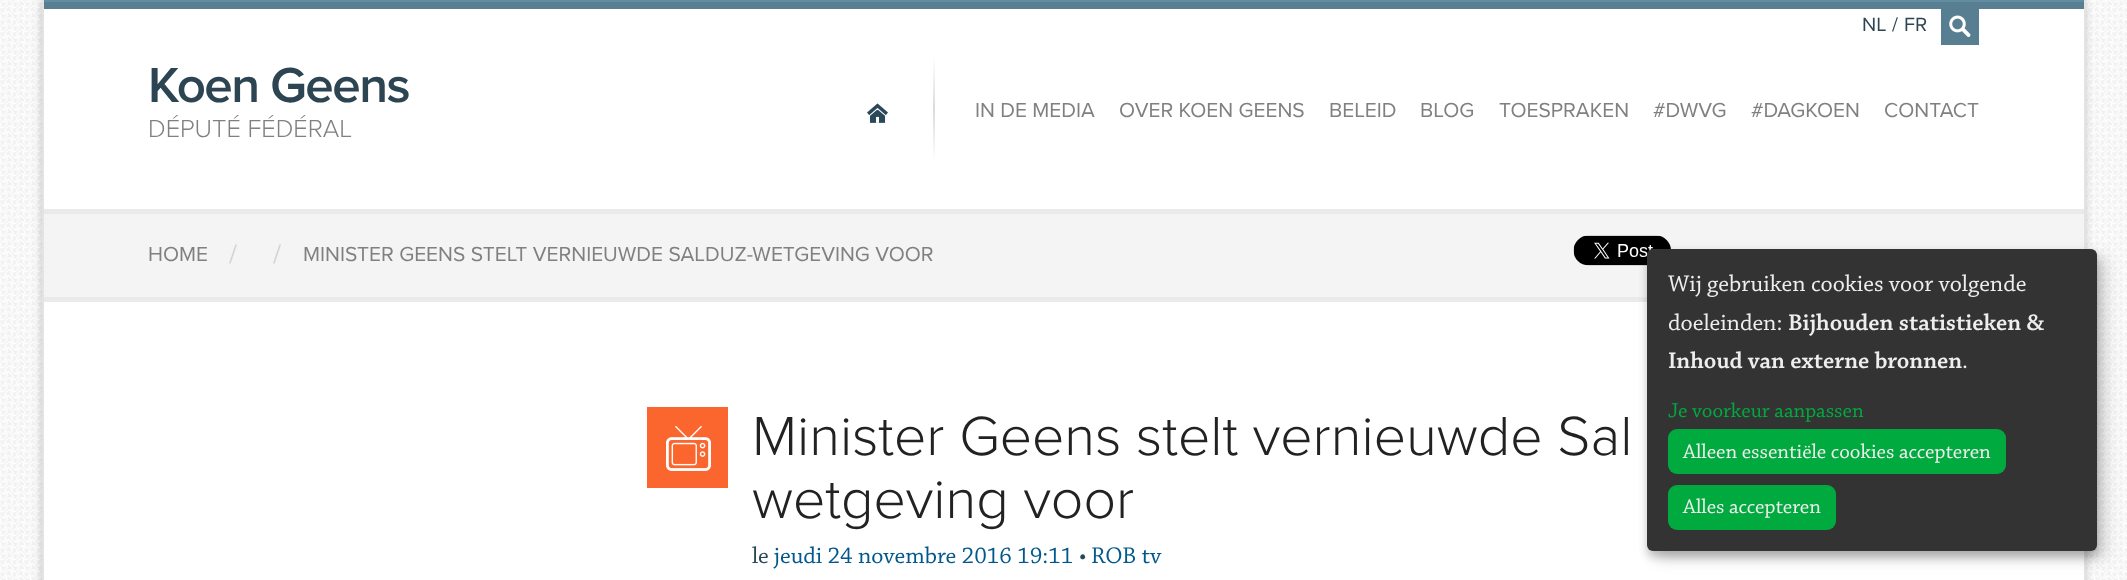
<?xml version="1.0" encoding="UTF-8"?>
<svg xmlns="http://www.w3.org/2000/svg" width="2127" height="580">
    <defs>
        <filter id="blur1" x="-50%" y="-200%" width="200%" height="500%"><feGaussianBlur stdDeviation="4"/></filter>
        <linearGradient id="g1" gradientUnits="userSpaceOnUse" x1="934" y1="57" x2="934" y2="162"><stop offset="0" stop-color="#FFFFFF"/><stop offset="0.5" stop-color="#DBDBDB"/><stop offset="1" stop-color="#FFFFFF"/></linearGradient>
        <filter id="blur2" x="-50%" y="-200%" width="200%" height="500%"><feGaussianBlur stdDeviation="7.5"/></filter>
        <filter id="blur3" x="-50%" y="-200%" width="200%" height="500%"><feGaussianBlur stdDeviation="4.5"/></filter>
    </defs>
    <rect width="100%" height="100%" fill="#FFFFFF"/>
    <image x="0" y="0" width="2127" height="580" href="img_01.png"/>
    <rect x="42" y="0" width="2043" height="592" fill="#010101" fill-opacity="0.25" filter="url(#blur1)"/>
    <rect x="44" y="9" width="2040" height="571" fill="#FFFFFF"/>
    <rect x="2084" y="0" width="2" height="580" fill="#E5E3E2"/>
    <rect x="42" y="0" width="2" height="580" fill="#E5E3E2"/>
    <rect x="44" y="0" width="2040" height="2" fill="#628CA0"/>
    <rect x="44" y="2" width="2040" height="7" fill="#587E91"/>
    <text x="148" y="102" font-family="Proxima Nova" font-size="51" font-weight="600" letter-spacing="-1.5" fill="#2D4553">Koen Geens</text>
    <text x="148" y="137" font-family="Proxima Nova" font-size="25.5" font-weight="300" fill="#808080">DÉPUTÉ FÉDÉRAL</text>
    <text x="1862" y="31" font-family="Proxima Nova" font-size="20" fill="#2D4553">NL</text>
    <text x="1892" y="31" font-family="Proxima Nova" font-size="20" fill="#284759">/</text>
    <text x="1904" y="31" font-family="Proxima Nova" font-size="20" fill="#2D4553">FR</text>
    <rect x="1941" y="9" width="38" height="36" fill="#587E91"/>
    <image x="1949" y="15" width="22" height="22" href="img_02.png"/>
    <image x="867" y="103" width="21" height="20" href="img_03.png"/>
    <rect x="933" y="57" width="2" height="105" fill="url(#g1)"/>
    <text x="975" y="117" font-family="Proxima Nova" font-size="21" fill="#808080">IN DE MEDIA</text>
    <text x="1119" y="117" font-family="Proxima Nova" font-size="21" fill="#808080">OVER KOEN GEENS</text>
    <text x="1329" y="117" font-family="Proxima Nova" font-size="21" fill="#808080">BELEID</text>
    <text x="1420" y="117" font-family="Proxima Nova" font-size="21" fill="#808080">BLOG</text>
    <text x="1499" y="117" font-family="Proxima Nova" font-size="21" fill="#808080">TOESPRAKEN</text>
    <text x="1653" y="117" font-family="Proxima Nova" font-size="21" fill="#808080">#DWVG</text>
    <text x="1751" y="117" font-family="Proxima Nova" font-size="21" fill="#808080">#DAGKOEN</text>
    <text x="1884" y="117" font-family="Proxima Nova" font-size="21" fill="#808080">CONTACT</text>
    <rect x="44" y="214" width="2040" height="83" fill="#F4F4F4"/>
    <rect x="44" y="209" width="2040" height="5" fill="#EAEAEA"/>
    <rect x="44" y="297" width="1603" height="5" fill="#EAEAEA"/>
    <text x="148" y="261" font-family="Proxima Nova" font-size="21" fill="#808080">HOME</text>
    <text x="229" y="263" font-family="Proxima Nova" font-size="27" fill="#CDD4D8">/</text>
    <text x="273" y="263" font-family="Proxima Nova" font-size="27" fill="#CDD4D8">/</text>
    <text x="303" y="261" font-family="Proxima Nova" font-size="21" fill="#808080">MINISTER GEENS STELT VERNIEUWDE SALDUZ-WETGEVING VOOR</text>
    <image x="1573" y="235" width="98" height="31" href="img_04.png"/>
    <rect x="647" y="407" width="81" height="81" fill="#FA662E"/>
    <image x="666" y="426" width="45" height="45" href="img_05.png"/>
    <text font-family="Proxima Nova" font-size="57" font-weight="300" fill="#222222">
        <tspan x="752" y="455">Minister Geens stelt vernieuwde Sal</tspan>
        <tspan x="752" y="518">wetgeving voor</tspan>
    </text>
    <text x="752" y="563" font-family="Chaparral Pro" font-size="24" fill="#284759">le</text>
    <text x="774" y="563" font-family="Chaparral Pro" font-size="24" fill="#00588D">jeudi 24 novembre 2016 19:11</text>
    <text x="1079" y="563" font-family="Chaparral Pro" font-size="24" fill="#284759">•</text>
    <text x="1091" y="563" font-family="Chaparral Pro" font-size="24" fill="#00588D">ROB tv</text>
    <rect x="1655" y="257" width="450" height="301" rx="6" fill="#000000" fill-opacity="0.19" filter="url(#blur2)"/>
    <rect x="1647" y="255" width="450" height="302" rx="6" fill="#000000" fill-opacity="0.2" filter="url(#blur3)"/>
    <rect x="1647" y="249" width="450" height="302" rx="6" fill="#333333"/>
    <text font-family="Chaparral Pro" font-size="24" fill="#EEEEEE">
        <tspan x="1668" y="291">Wij gebruiken cookies voor volgende</tspan>
        <tspan x="1668" y="330">doeleinden:</tspan>
    </text>
    <text x="1788" y="330" font-family="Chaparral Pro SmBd" font-size="24" font-weight="600" fill="#EEEEEE">Bijhouden statistieken &amp;</text>
    <text x="1668" y="368" font-family="Chaparral Pro SmBd" font-size="24" font-weight="600" fill="#EEEEEE">Inhoud van externe bronnen</text>
    <text x="1962" y="368" font-family="Chaparral Pro" font-size="24" fill="#EEEEEE">.</text>
    <text x="1668" y="417" font-family="Chaparral Pro" font-size="21" fill="#00AA3E">Je voorkeur aanpassen</text>
    <rect x="1668" y="429" width="338" height="45" rx="9" fill="#00AA3E"/>
    <text x="1683" y="458" font-family="Chaparral Pro" font-size="21" fill="#EEEEEE">Alleen essentiële cookies accepteren</text>
    <rect x="1668" y="485" width="168" height="45" rx="9" fill="#00AA3E"/>
    <text x="1683" y="513" font-family="Chaparral Pro" font-size="21" fill="#EEEEEE">Alles accepteren</text>
</svg>
